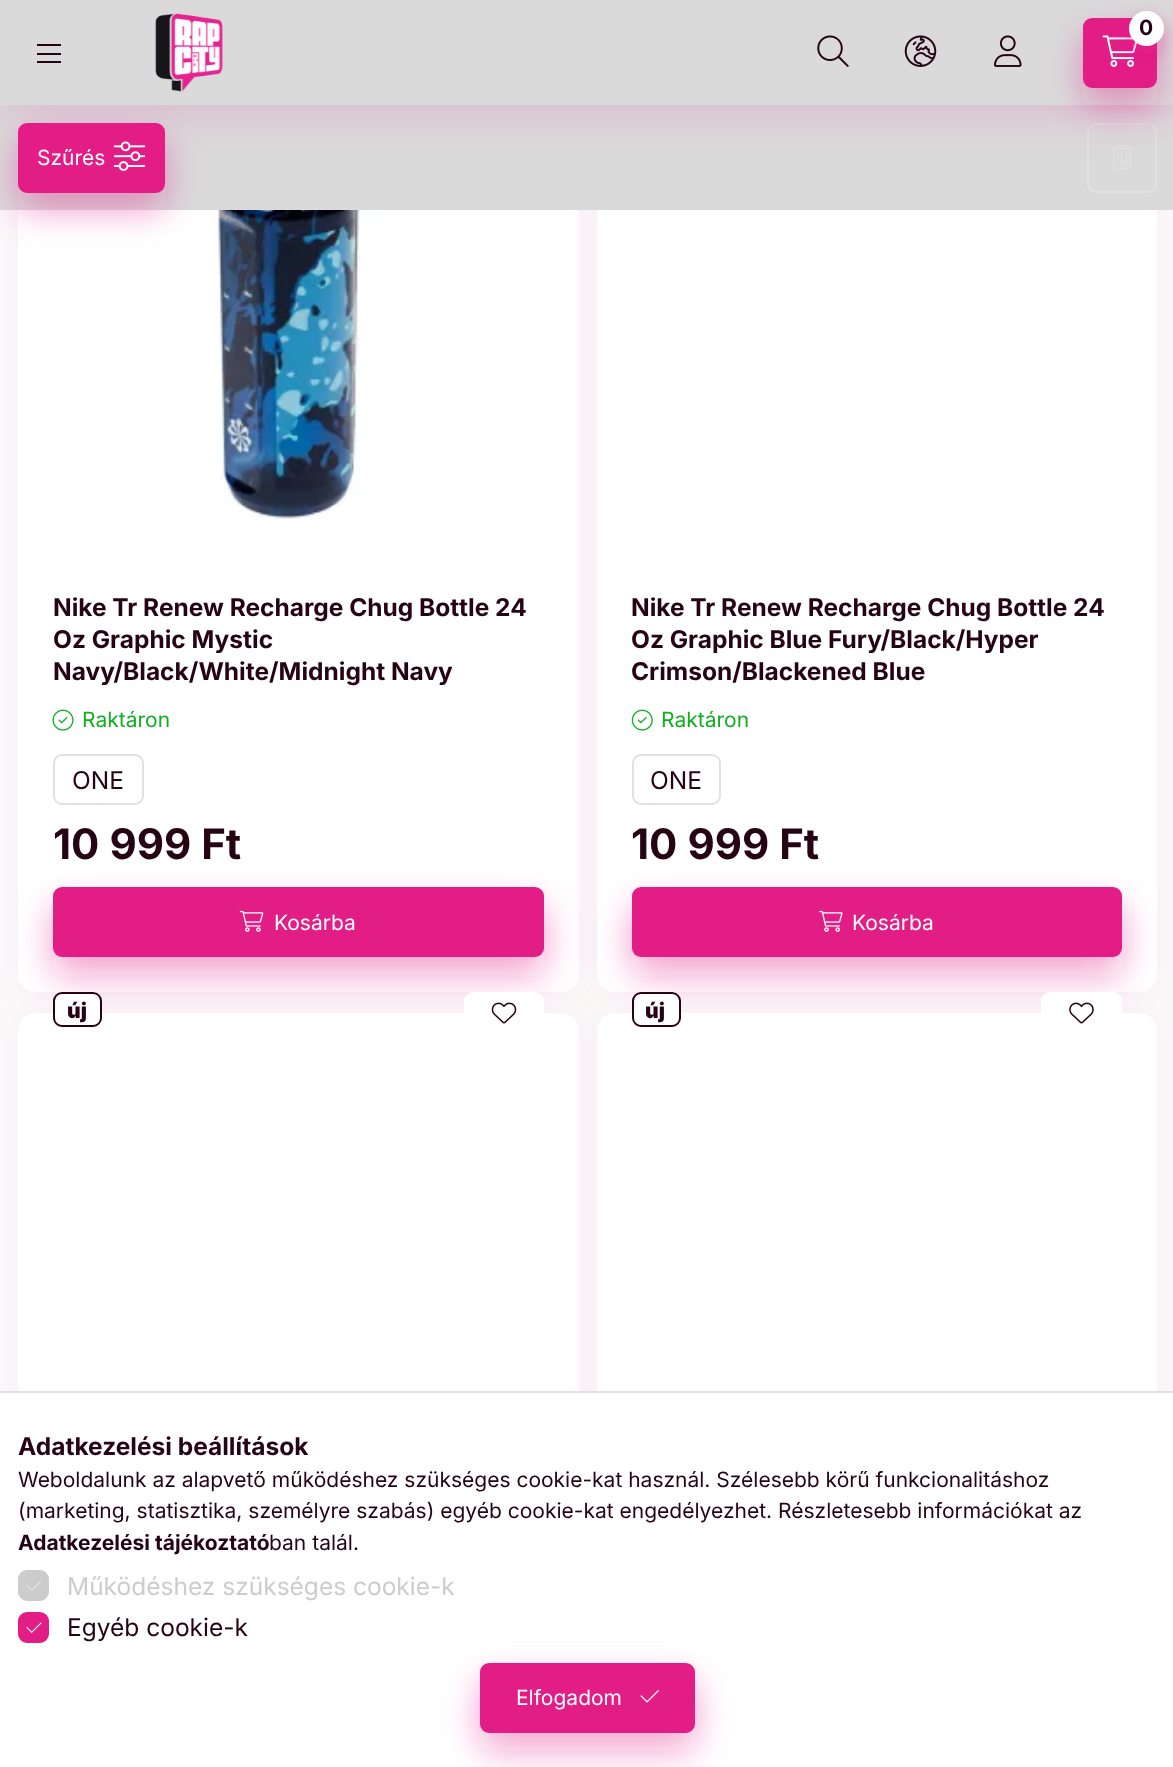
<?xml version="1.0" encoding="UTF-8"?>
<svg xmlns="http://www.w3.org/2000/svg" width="1173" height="1767">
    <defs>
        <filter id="blur1" x="-50%" y="-200%" width="200%" height="500%"><feGaussianBlur stdDeviation="17.5"/></filter>
        <filter id="blur2" x="-50%" y="-200%" width="200%" height="500%"><feGaussianBlur stdDeviation="26"/></filter>
        <filter id="blur3" x="-50%" y="-200%" width="200%" height="500%"><feGaussianBlur stdDeviation="9"/></filter>
    </defs>
    <rect width="100%" height="100%" fill="#FAFAFA"/>
    <rect x="18" y="23" width="561" height="969" rx="18" fill="#E31D86" fill-opacity="0.05" filter="url(#blur1)"/>
    <rect x="18" y="23" width="561" height="969" rx="18" fill="#FFFFFF"/>
    <rect x="53" y="905" width="491" height="70" rx="9" fill="#E31D86" fill-opacity="0.4" filter="url(#blur1)"/>
    <rect x="53" y="887" width="491" height="70" rx="9" fill="#E31D86"/>
    <rect x="597" y="23" width="560" height="969" rx="18" fill="#E31D86" fill-opacity="0.05" filter="url(#blur1)"/>
    <rect x="597" y="23" width="560" height="969" rx="18" fill="#FFFFFF"/>
    <rect x="0" y="105" width="1173" height="105" fill="#DADADA"/>
    <image x="214" y="210" width="167" height="309" href="img_08.png"/>
    <rect x="18" y="140" width="147" height="70" rx="9" fill="#E31D86" fill-opacity="0.4" filter="url(#blur1)"/>
    <rect x="19" y="124" width="145" height="68" rx="8" fill="#E31D86" stroke="#E31D86" stroke-width="2"/>
    <image x="113" y="141" width="33" height="30" href="img_06.png"/>
    <rect x="1088" y="124" width="68" height="68" rx="8" fill="none" stroke="#E1E1E1" stroke-width="2"/>
    <image x="1111" y="145" width="22" height="24" href="img_07.png"/>
    <rect x="0" y="0" width="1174" height="105" fill="#E31D86" fill-opacity="0.2" filter="url(#blur2)"/>
    <rect x="0" y="0" width="1173" height="105" fill="#DADADA"/>
    <rect x="37" y="44" width="24" height="2" fill="#260413"/>
    <rect x="37" y="53" width="24" height="2" fill="#260413"/>
    <rect x="37" y="61" width="24" height="2" fill="#260413"/>
    <image x="155" y="13" width="68" height="79" href="img_01.png"/>
    <rect x="1083" y="35" width="74" height="70" rx="9" fill="#E31D86" fill-opacity="0.4" filter="url(#blur1)"/>
    <rect x="1083" y="18" width="74" height="70" rx="9" fill="#E31D86"/>
    <image x="1102" y="35" width="35" height="32" href="img_02.png"/>
    <rect x="1129" y="19" width="35" height="35" rx="17.5" fill="#E31D86" fill-opacity="0.4" filter="url(#blur3)"/>
    <circle cx="1146.5" cy="28.5" r="17.5" fill="#FFFFFF"/>
    <text x="1139" y="35" font-family="Inter" font-size="21" font-weight="700" fill="#260413">0</text>
    <image x="817" y="35" width="32" height="32" href="img_03.png"/>
    <image x="904" y="35" width="33" height="32" href="img_04.png"/>
    <image x="994" y="35" width="28" height="32" href="img_05.png"/>
    <text x="37" y="165" font-family="Inter" font-size="21" fill="#FFFFFF">Szűrés</text>
    <text font-family="Inter" font-size="24.5" font-weight="700" fill="#260413">
        <tspan x="53" y="616">Nike Tr Renew Recharge Chug Bottle 24</tspan>
        <tspan x="53" y="648">Oz Graphic Mystic</tspan>
        <tspan x="53" y="680">Navy/Black/White/Midnight Navy</tspan>
    </text>
    <image x="52" y="709" width="22" height="22" href="img_09.png"/>
    <text x="82" y="727" font-family="Inter" font-size="21" fill="#10AE20">Raktáron</text>
    <rect x="54" y="755" width="89" height="49" rx="8" fill="none" stroke="#E1E1E1" stroke-width="2"/>
    <text x="72" y="789" font-family="Inter" font-size="24.5" fill="#260413">ONE</text>
    <text x="53" y="859" font-family="Inter" font-size="42" font-weight="700" fill="#260413">10 999 Ft</text>
    <image x="239" y="910" width="25" height="22" href="img_10.png"/>
    <text x="274" y="930" font-family="Inter" font-size="21" fill="#FFFFFF">Kosárba</text>
    <text font-family="Inter" font-size="24.5" font-weight="700" fill="#260413">
        <tspan x="631" y="616">Nike Tr Renew Recharge Chug Bottle 24</tspan>
        <tspan x="631" y="648">Oz Graphic Blue Fury/Black/Hyper</tspan>
        <tspan x="631" y="680">Crimson/Blackened Blue</tspan>
    </text>
    <image x="631" y="709" width="22" height="22" href="img_11.png"/>
    <text x="661" y="727" font-family="Inter" font-size="21" fill="#10AE20">Raktáron</text>
    <rect x="633" y="755" width="87" height="49" rx="8" fill="none" stroke="#E1E1E1" stroke-width="2"/>
    <text x="650" y="789" font-family="Inter" font-size="24.5" fill="#260413">ONE</text>
    <rect x="632" y="905" width="490" height="70" rx="9" fill="#E31D86" fill-opacity="0.4" filter="url(#blur1)"/>
    <text x="631" y="859" font-family="Inter" font-size="42" font-weight="700" fill="#260413">10 999 Ft</text>
    <rect x="632" y="887" width="490" height="70" rx="9" fill="#E31D86"/>
    <image x="819" y="910" width="24" height="22" href="img_12.png"/>
    <text x="852" y="930" font-family="Inter" font-size="21" fill="#FFFFFF">Kosárba</text>
    <rect x="18" y="1013" width="561" height="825" rx="18" fill="#E31D86" fill-opacity="0.05" filter="url(#blur1)"/>
    <rect x="18" y="1013" width="561" height="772" rx="18" fill="#FFFFFF"/>
    <rect x="54" y="993" width="47" height="33" rx="8" fill="#FFFFFF" stroke="#260413" stroke-width="2"/>
    <text x="67" y="1018" font-family="Inter" font-size="21" font-weight="900" fill="#260413">új</text>
    <rect x="597" y="1013" width="560" height="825" rx="18" fill="#E31D86" fill-opacity="0.05" filter="url(#blur1)"/>
    <rect x="464" y="992" width="80" height="42" rx="9" fill="#FFFFFF"/>
    <image x="491" y="1002" width="26" height="22" href="img_13.png"/>
    <rect x="597" y="1013" width="560" height="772" rx="18" fill="#FFFFFF"/>
    <rect x="633" y="993" width="47" height="33" rx="8" fill="#FFFFFF" stroke="#260413" stroke-width="2"/>
    <text x="645" y="1018" font-family="Inter" font-size="21" font-weight="900" fill="#260413">új</text>
    <rect x="1041" y="992" width="81" height="42" rx="9" fill="#FFFFFF"/>
    <image x="1069" y="1002" width="25" height="22" href="img_14.png"/>
    <rect x="0" y="1393" width="1173" height="374" fill="#FFFFFF"/>
    <rect x="0" y="1391" width="1173" height="2" fill="#E1E1E1"/>
    <text x="18" y="1455" font-family="Inter" font-size="24.5" font-weight="700" fill="#260413">Adatkezelési beállítások</text>
    <text font-family="Inter" font-size="21" fill="#260413">
        <tspan x="18" y="1487">Weboldalunk az alapvető működéshez szükséges cookie-kat használ. Szélesebb körű funkcionalitáshoz</tspan>
        <tspan x="18" y="1518">(marketing, statisztika, személyre szabás) egyéb cookie-kat engedélyezhet. Részletesebb információkat az</tspan>
    </text>
    <text x="18" y="1550" font-family="Inter" font-size="21" font-weight="700" fill="#260413">Adatkezelési tájékoztató</text>
    <text x="269" y="1550" font-family="Inter" font-size="21" fill="#260413">ban talál.</text>
    <rect x="19" y="1571" width="29" height="29" rx="8" fill="#CCCCCC" stroke="#CCCCCC" stroke-width="2"/>
    <image x="26" y="1580" width="16" height="11" href="img_15.png"/>
    <text x="67" y="1595" font-family="Inter" font-size="24.5" fill="#CCCCCC">Működéshez szükséges cookie-k</text>
    <rect x="19" y="1613" width="29" height="29" rx="8" fill="#E31D86" stroke="#E31D86" stroke-width="2"/>
    <image x="26" y="1622" width="16" height="11" href="img_16.png"/>
    <text x="67" y="1636" font-family="Inter" font-size="24.5" fill="#260413">Egyéb cookie-k</text>
    <rect x="480" y="1680" width="215" height="70" rx="9" fill="#E31D86" fill-opacity="0.4" filter="url(#blur1)"/>
    <rect x="481" y="1664" width="213" height="68" rx="8" fill="#E31D86" stroke="#E31D86" stroke-width="2"/>
    <text x="516" y="1705" font-family="Inter" font-size="21" fill="#FFFFFF">Elfogadom</text>
    <image x="640" y="1690" width="19" height="13" href="img_17.png"/>
</svg>
